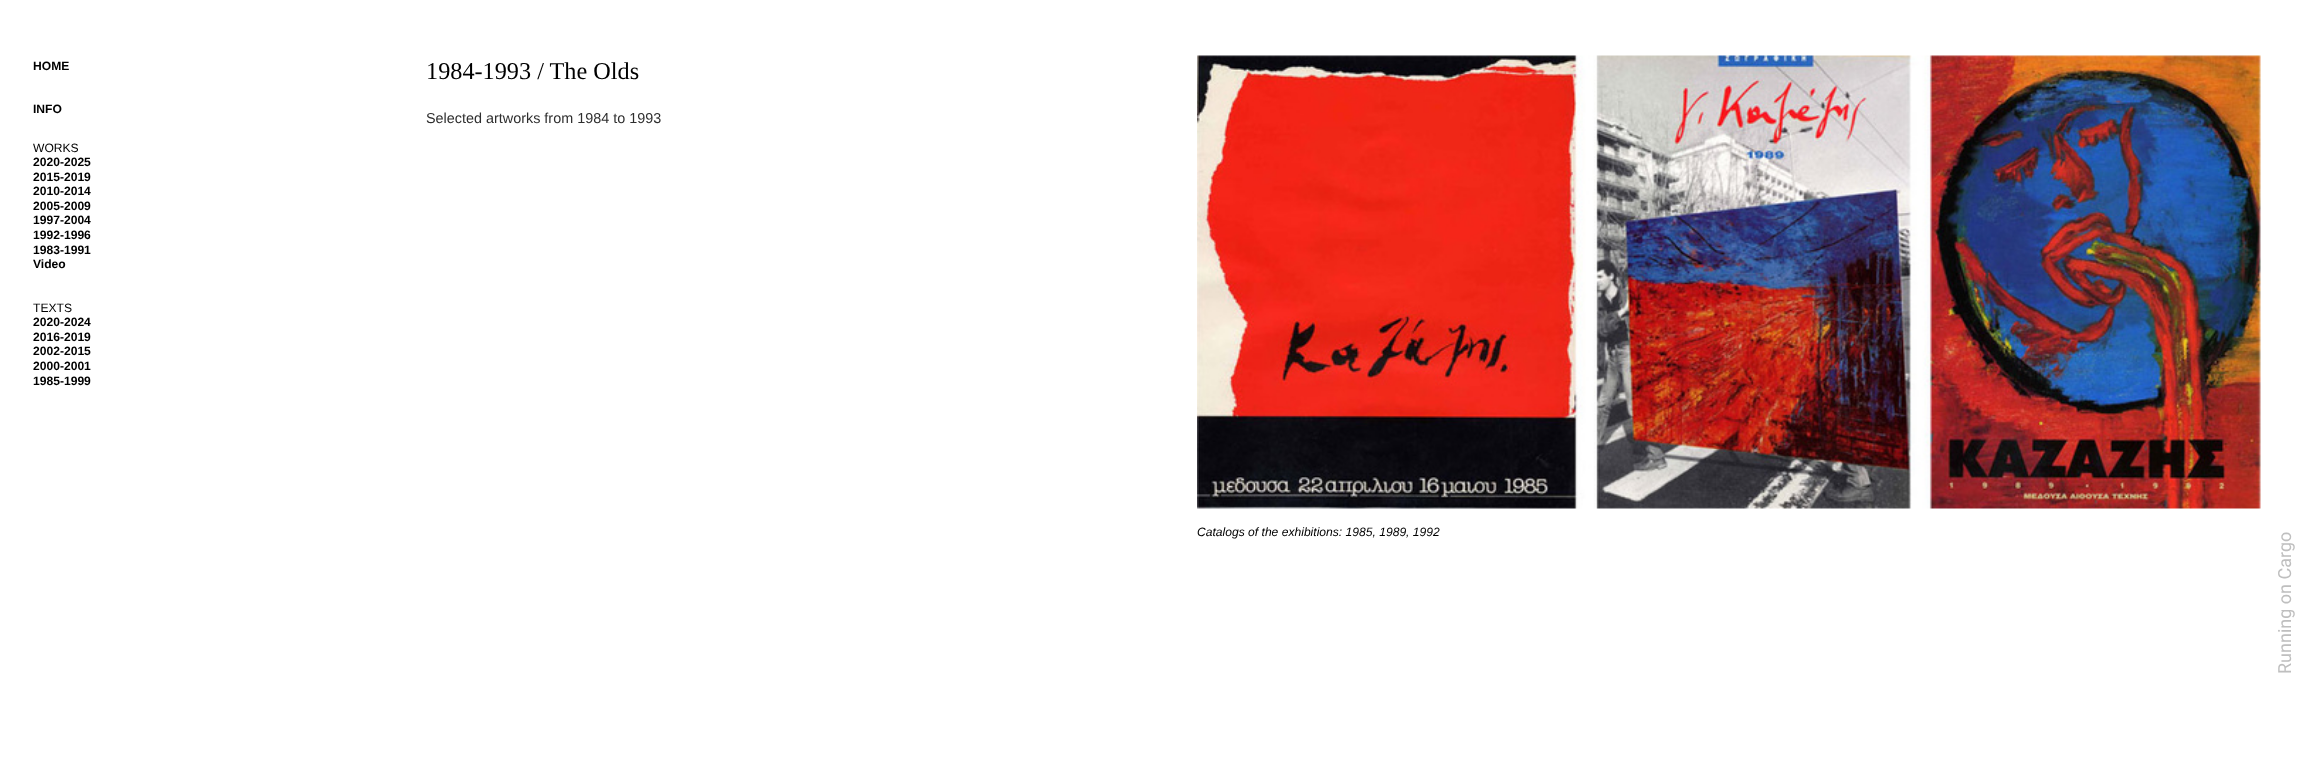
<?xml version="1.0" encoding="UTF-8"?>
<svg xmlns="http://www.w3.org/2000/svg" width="2315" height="766">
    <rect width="100%" height="100%" fill="#FFFFFF"/>
    <text x="33" y="70" font-family="Liberation Sans" font-size="12.1" font-weight="700" fill="#000000">HOME</text>
    <text x="33" y="113" font-family="Liberation Sans" font-size="12.1" font-weight="700" fill="#000000">INFO</text>
    <text x="33" y="152" font-family="Liberation Sans" font-size="12.1" fill="#000000">WORKS</text>
    <text font-family="Liberation Sans" font-size="12.1" font-weight="700" fill="#000000">
        <tspan x="33" y="166">2020-2025</tspan>
        <tspan x="33" y="181">2015-2019</tspan>
        <tspan x="33" y="195">2010-2014</tspan>
        <tspan x="33" y="210">2005-2009</tspan>
        <tspan x="33" y="224">1997-2004</tspan>
        <tspan x="33" y="239">1992-1996</tspan>
        <tspan x="33" y="254">1983-1991</tspan>
        <tspan x="33" y="268">Video</tspan>
    </text>
    <text x="33" y="312" font-family="Liberation Sans" font-size="12.1" fill="#000000">TEXTS</text>
    <text font-family="Liberation Sans" font-size="12.1" font-weight="700" fill="#000000">
        <tspan x="33" y="326">2020-2024</tspan>
        <tspan x="33" y="341">2016-2019</tspan>
        <tspan x="33" y="355">2002-2015</tspan>
        <tspan x="33" y="370">2000-2001</tspan>
        <tspan x="33" y="385">1985-1999</tspan>
    </text>
    <text x="426" y="79" font-family="Liberation Serif" font-size="24.25" fill="#000000">1984-1993 / The Olds</text>
    <text x="426" y="123" font-family="Liberation Sans" font-size="14.4" fill="#2E2E2E">Selected artworks from 1984 to 1993</text>
    <image x="1197" y="55" width="1064" height="454" href="img_01.png"/>
    <text x="1197" y="536" font-family="Liberation Sans" font-size="12.1" font-style="italic" fill="#000000">Catalogs of the exhibitions: 1985, 1989, 1992</text>
    <text x="2291" y="674" transform="rotate(-90 2291 674)" font-family="Roboto" font-size="18" fill="#BFBFBF">Running on Cargo</text>
</svg>
